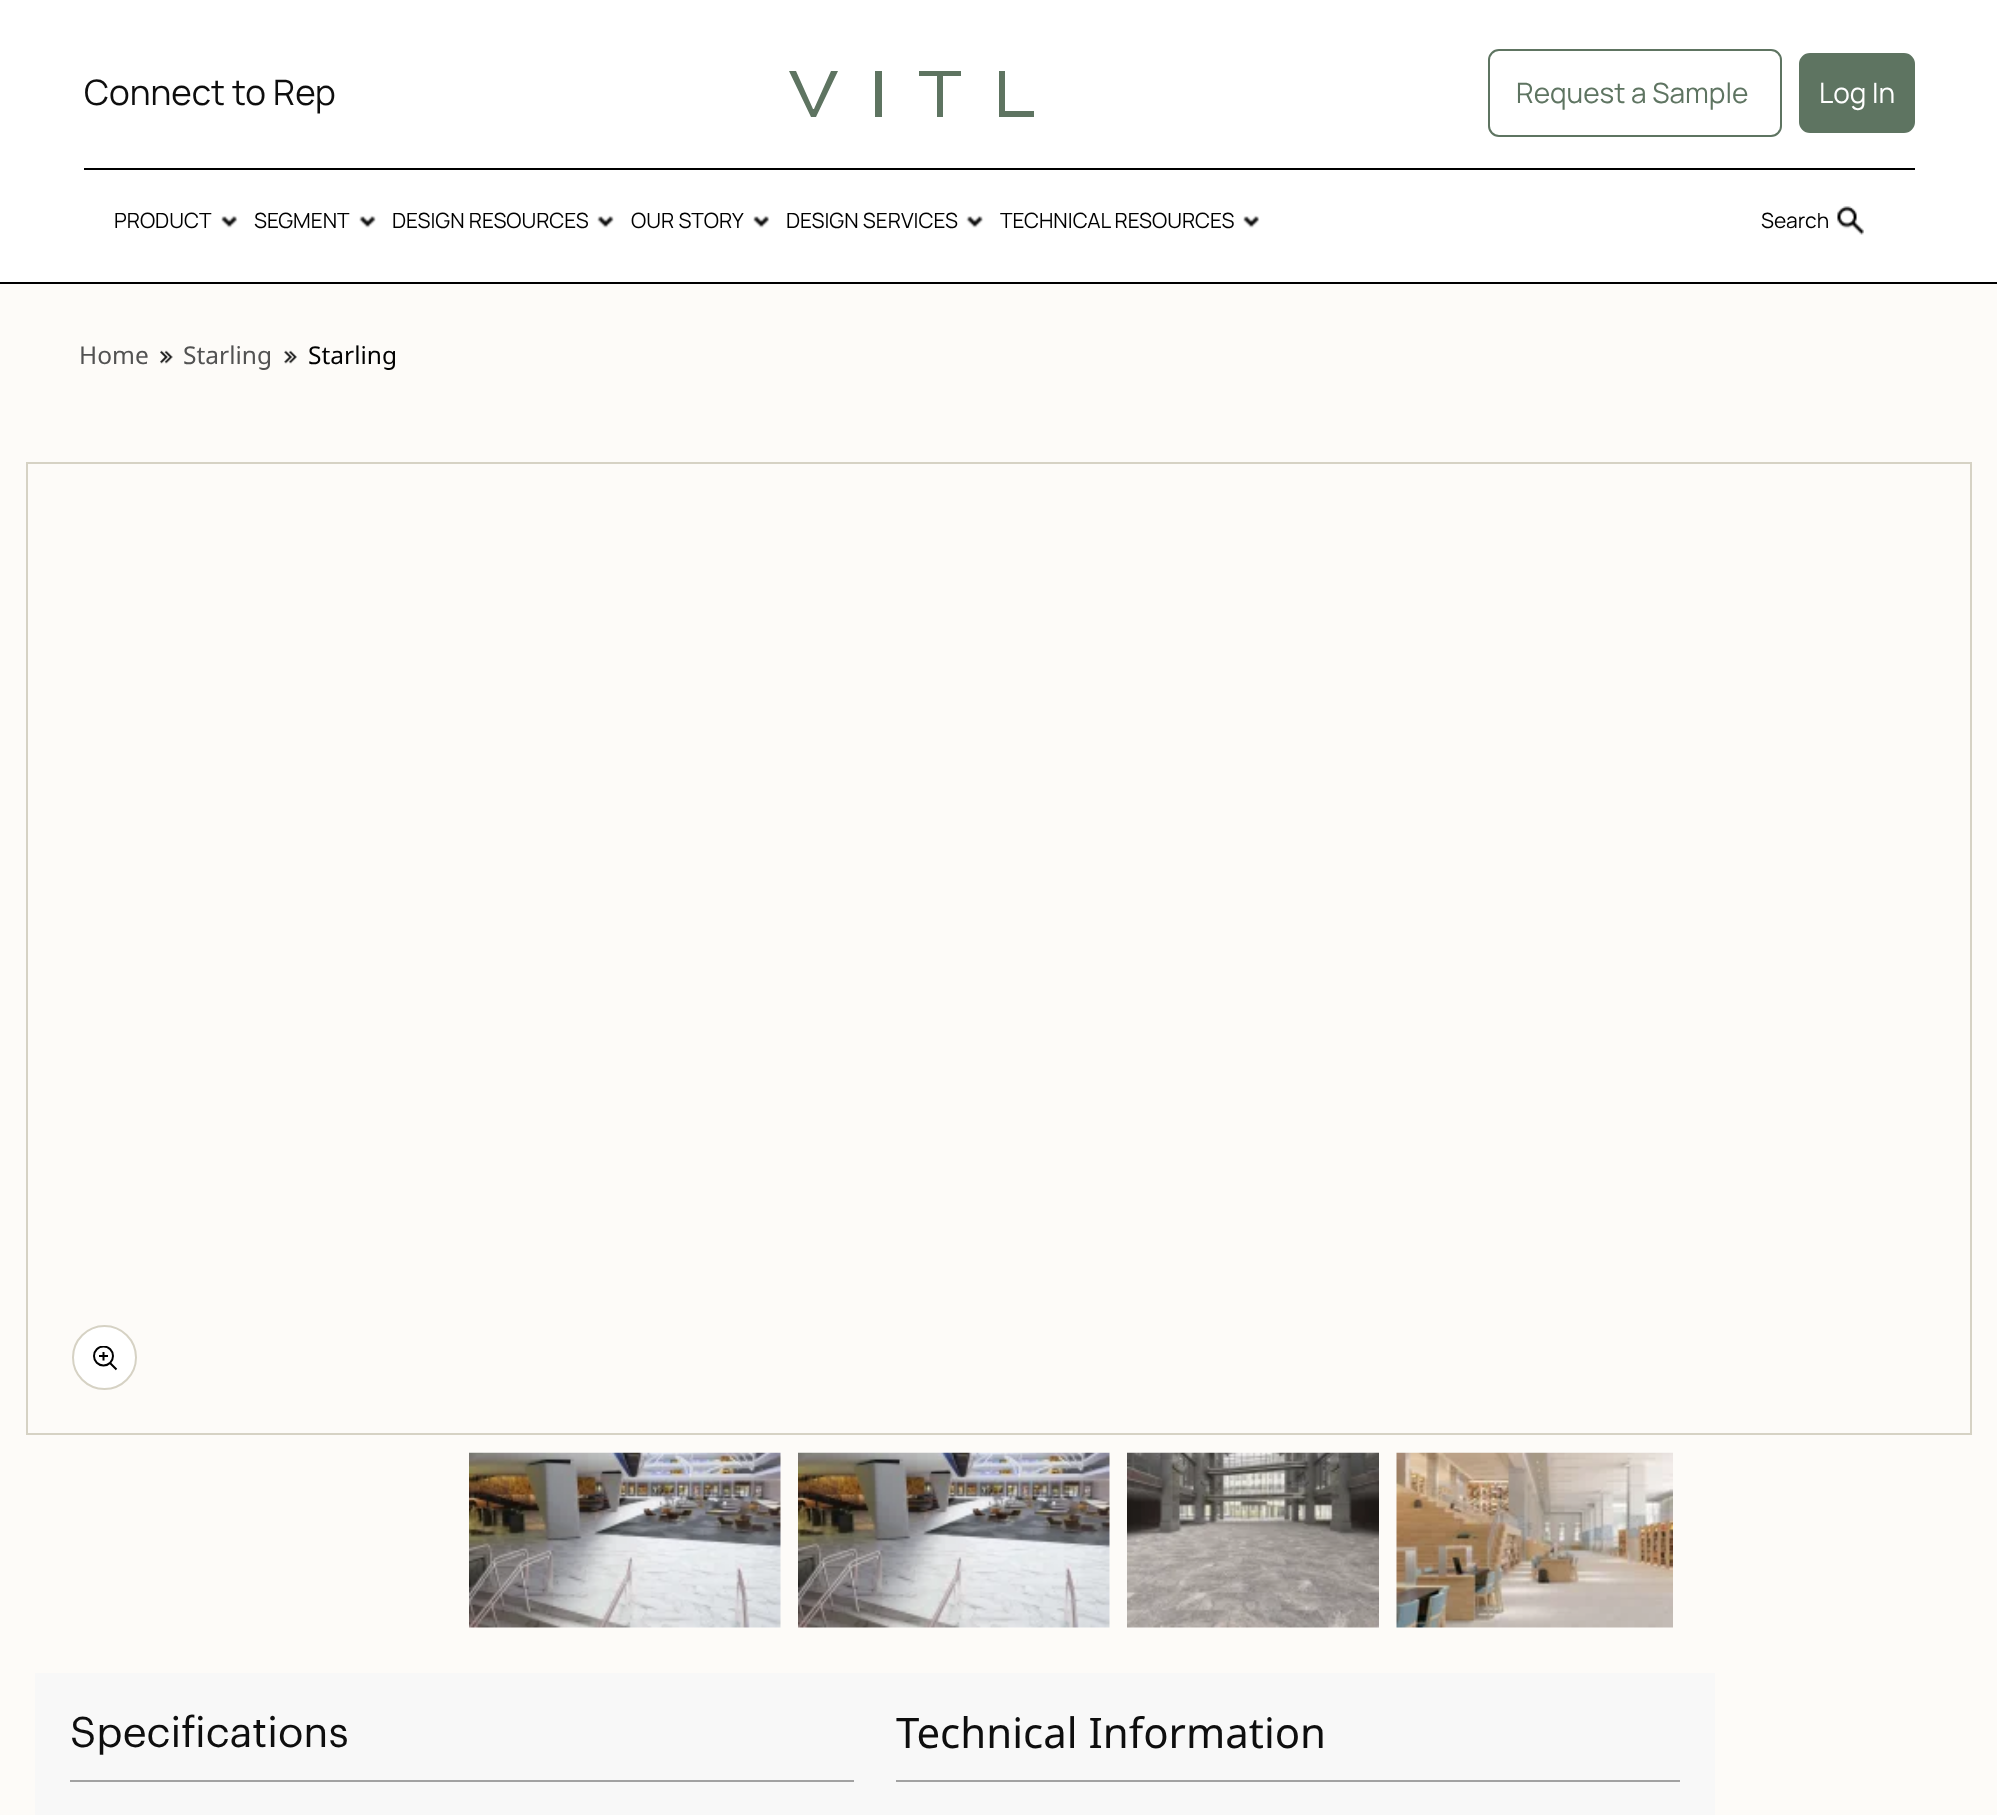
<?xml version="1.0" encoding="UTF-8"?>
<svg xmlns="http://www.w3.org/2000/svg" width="1997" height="1815">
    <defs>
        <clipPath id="clip1"><rect x="93" y="1346" width="24" height="24"/></clipPath>
    </defs>
    <rect width="100%" height="100%" fill="#FDFBF8"/>
    <rect x="0" y="0" width="1997" height="282" fill="#FFFFFF"/>
    <rect x="0" y="282" width="1997" height="2" fill="#000000"/>
    <rect x="84" y="168" width="1831" height="2" fill="#000000"/>
    <text x="84" y="105" font-family="Manrope" font-size="35" fill="#0E0E0E">Connect to Rep</text>
    <path d="M 831 71 L 814 109 H 813 L 796 71 H 789 L 811 117 H 816 L 838 71 Z M 875 117 H 882 V 71 H 875 Z M 919 71 V 76 H 937 V 117 H 943 V 76 H 961 V 71 Z M 999 71 V 117 H 1034 V 111 H 1005 V 71 Z" fill="#5E7461"/>
    <rect x="1489" y="50" width="292" height="86" rx="10" fill="none" stroke="#5E7461" stroke-width="2"/>
    <text x="1516" y="103" font-family="Manrope" font-size="28" fill="#5E7461">Request a Sample</text>
    <rect x="1800" y="54" width="114" height="78" rx="10" fill="#5E7461" stroke="#5E7461" stroke-width="2"/>
    <text x="1819" y="103" font-family="Manrope" font-size="28" fill="#FFFFFF">Log In</text>
    <text x="114" y="228" font-family="Manrope" font-size="21" fill="#000000">PRODUCT</text>
    <image x="221" y="215" width="17" height="13" href="img_01.png"/>
    <text x="254" y="228" font-family="Manrope" font-size="21" fill="#000000">SEGMENT</text>
    <image x="359" y="215" width="17" height="13" href="img_02.png"/>
    <text x="392" y="228" font-family="Manrope" font-size="21" fill="#000000">DESIGN RESOURCES</text>
    <image x="597" y="215" width="17" height="13" href="img_03.png"/>
    <text x="631" y="228" font-family="Manrope" font-size="21" fill="#000000">OUR STORY</text>
    <image x="753" y="215" width="17" height="13" href="img_01.png"/>
    <text x="786" y="228" font-family="Manrope" font-size="21" fill="#000000">DESIGN SERVICES</text>
    <image x="966" y="215" width="18" height="13" href="img_04.png"/>
    <text x="1000" y="228" font-family="Manrope" font-size="21" fill="#000000">TECHNICAL RESOURCES</text>
    <image x="1243" y="215" width="17" height="13" href="img_01.png"/>
    <text x="1761" y="228" font-family="Manrope" font-size="21" fill="#000000">Search</text>
    <image x="1837" y="206" width="27" height="29" href="img_05.png"/>
    <text x="79" y="364" font-family="Noto Sans" font-size="24.5" fill="#525252">Home</text>
    <image x="160" y="350" width="13" height="14" href="img_06.png"/>
    <text x="183" y="364" font-family="Noto Sans" font-size="24.5" fill="#525252">Starling</text>
    <image x="284" y="350" width="13" height="14" href="img_07.png"/>
    <text x="308" y="364" font-family="Noto Sans" font-size="24.5" fill="#000000">Starling</text>
    <rect x="27" y="463" width="1944" height="971" fill="none" stroke="#D6D2C4" stroke-width="2"/>
    <circle cx="104.5" cy="1357.5" r="31.5" fill="#FFFFFF" stroke="#D6D2C4" stroke-width="2"/>
    <g clip-path="url(#clip1)">
        <circle cx="103.5" cy="1356" r="9.5" fill="none" stroke="#000000" stroke-width="2"/>
    </g>
    <path d="M 110 1363 L 116.5 1369.5 M 103.5 1352 V 1360.5 M 108 1356 H 99" fill="none" stroke="#000000" stroke-width="2"/>
    <image x="469" y="1452" width="312" height="176" href="img_08.png"/>
    <image x="798" y="1452" width="312" height="176" href="img_09.png"/>
    <image x="1127" y="1452" width="252" height="176" href="img_10.png"/>
    <image x="1396" y="1452" width="277" height="176" href="img_11.png"/>
    <rect x="35" y="1673" width="1680" height="142" fill="#F8F8F8"/>
    <rect x="70" y="1780" width="784" height="2" fill="#A2A2A2"/>
    <text x="70" y="1747" font-family="Graphik" font-size="42" fill="#0E0E0E">Specifications</text>
    <rect x="896" y="1780" width="784" height="2" fill="#A2A2A2"/>
    <text x="896" y="1748" font-family="Noto Sans" font-size="42" fill="#0E0E0E">Technical Information</text>
</svg>
